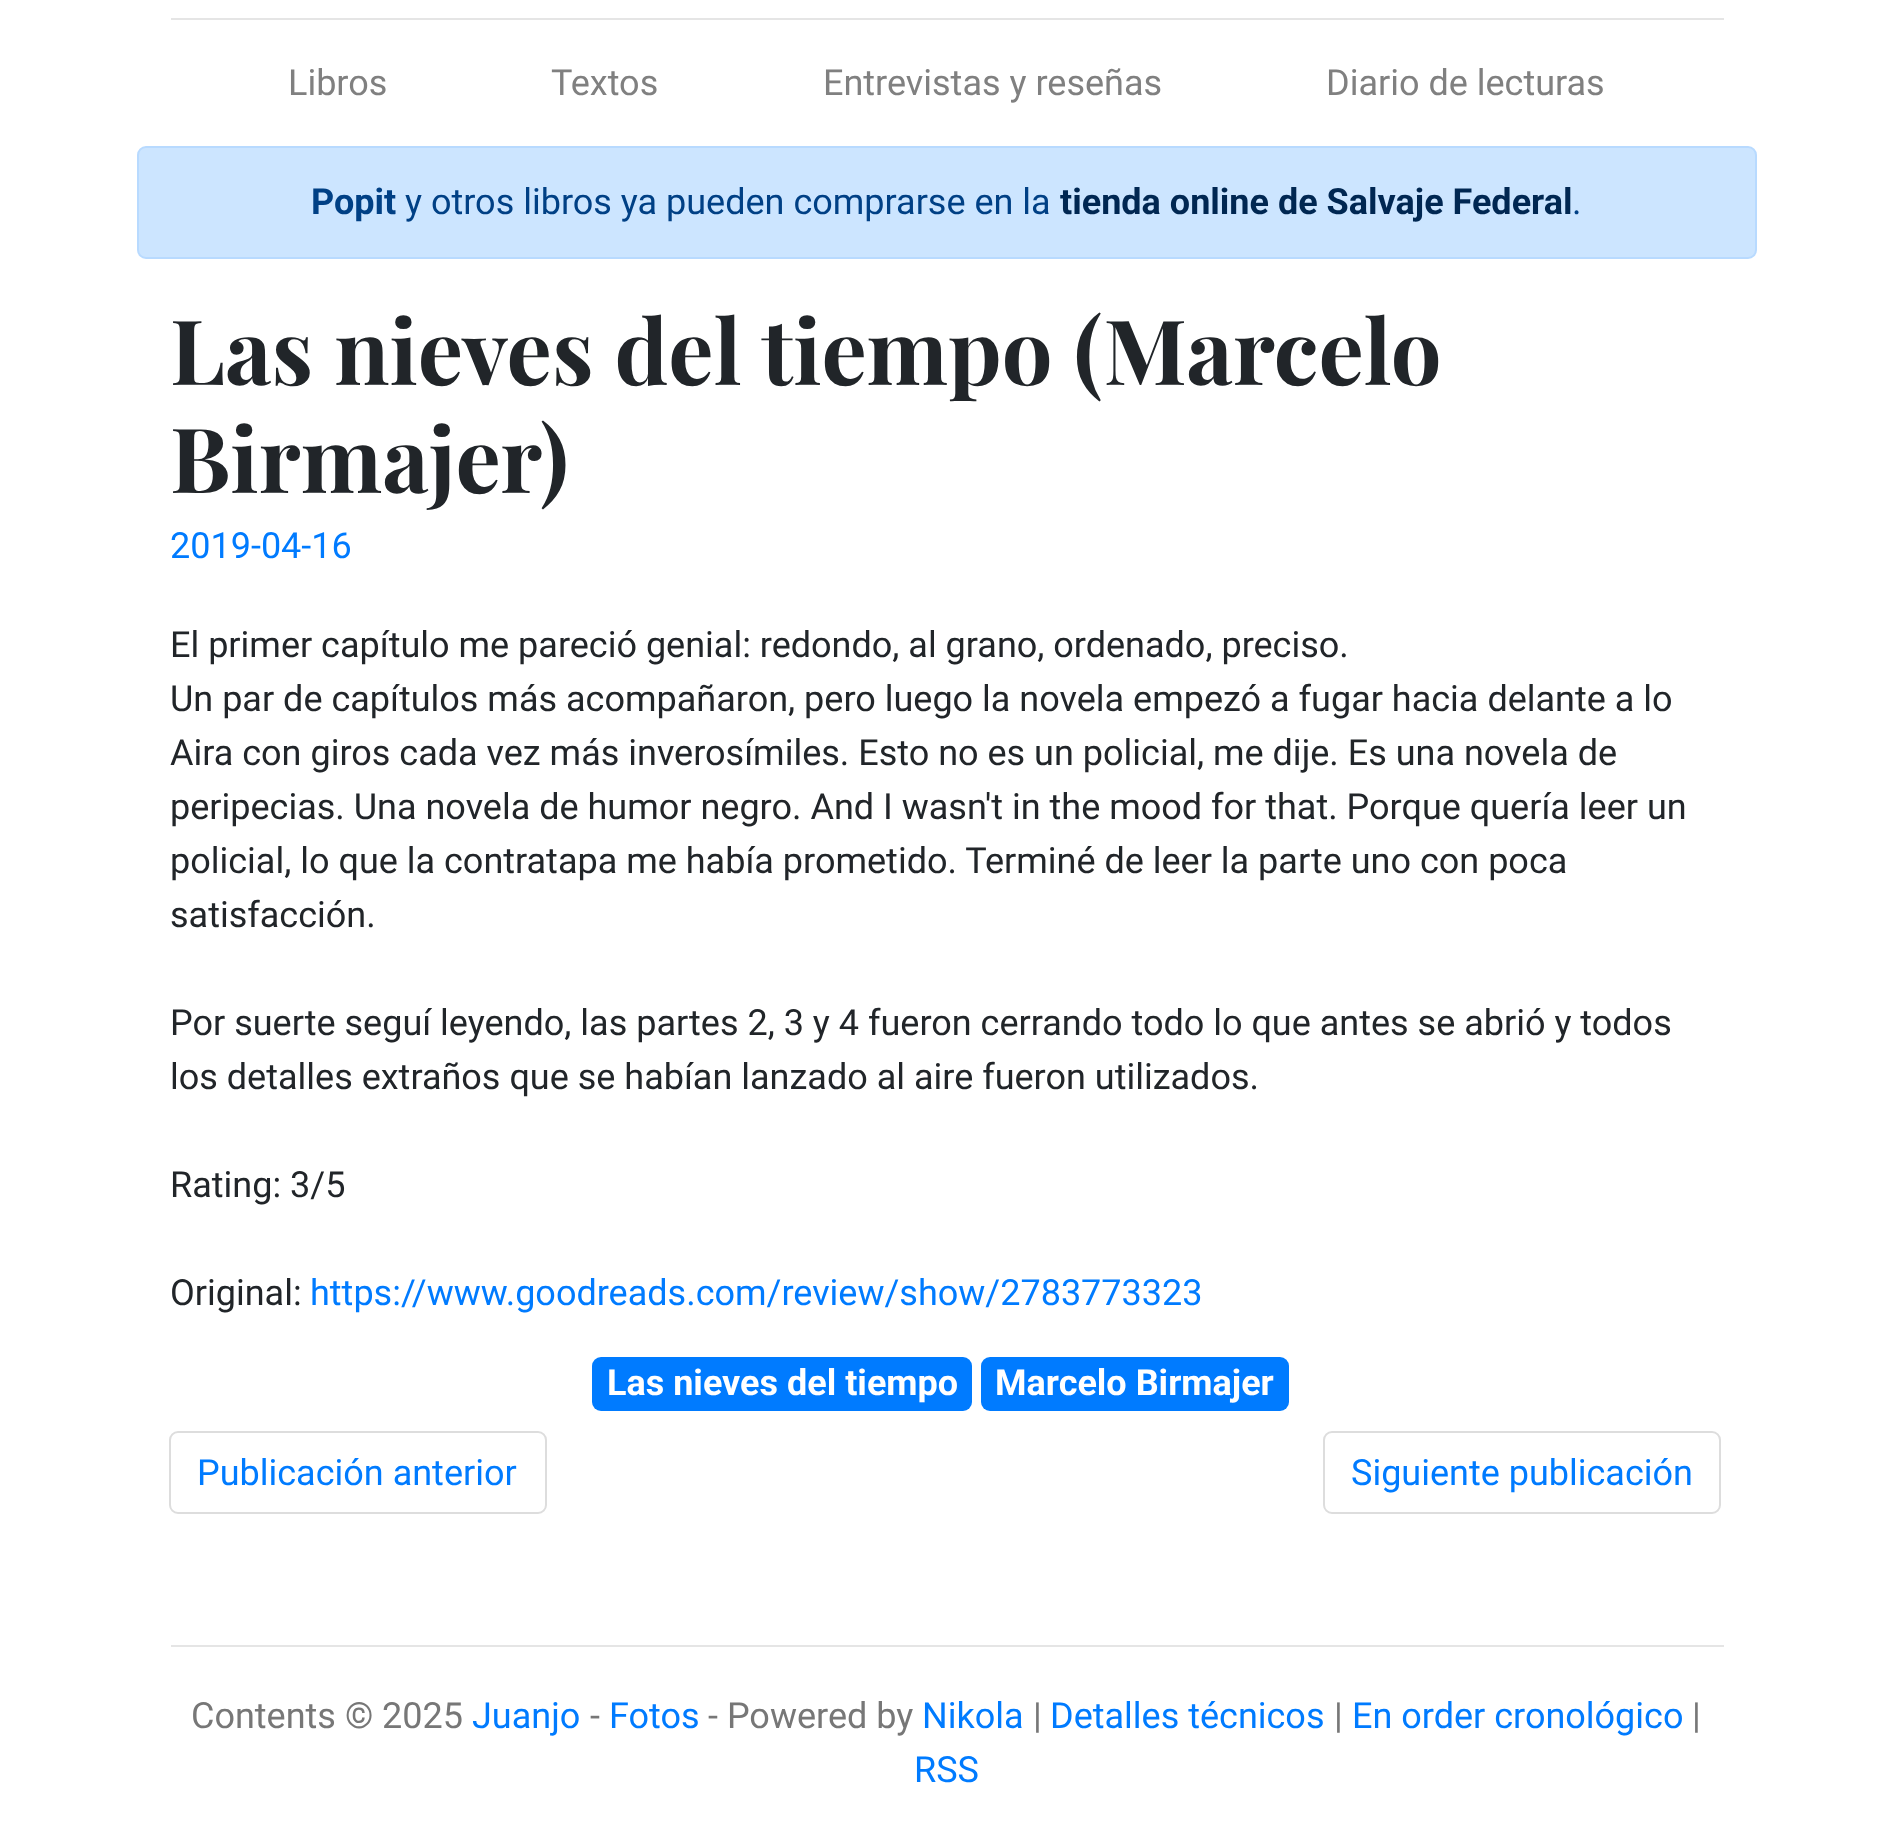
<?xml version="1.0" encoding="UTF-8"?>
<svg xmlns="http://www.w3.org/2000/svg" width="1891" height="1826">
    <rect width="100%" height="100%" fill="#FFFFFF"/>
    <rect x="171" y="18" width="1553" height="2" fill="#E5E5E5"/>
    <text x="288" y="95" font-family="Roboto" font-size="36" fill="#808080">Libros</text>
    <text x="551" y="95" font-family="Roboto" font-size="36" fill="#808080">Textos</text>
    <text x="823" y="95" font-family="Roboto" font-size="36" fill="#808080">Entrevistas y reseñas</text>
    <text x="1326" y="95" font-family="Roboto" font-size="36" fill="#808080">Diario de lecturas</text>
    <rect x="138" y="147" width="1618" height="111" rx="8" fill="#CCE5FF" stroke="#B8DAFF" stroke-width="2"/>
    <text x="311" y="214" font-family="Roboto" font-size="36" font-weight="700" fill="#004085">Popit</text>
    <text x="405" y="214" font-family="Roboto" font-size="36" fill="#004085">y otros libros ya pueden comprarse en la</text>
    <text x="1060" y="214" font-family="Roboto" font-size="36" font-weight="700" fill="#002752">tienda online de Salvaje Federal</text>
    <text x="1572" y="214" font-family="Roboto" font-size="36" fill="#004085">.</text>
    <text font-family="Playfair Display" font-size="90" font-weight="700" fill="#212529">
        <tspan x="170" y="385">Las nieves del tiempo (Marcelo</tspan>
        <tspan x="170" y="493">Birmajer)</tspan>
    </text>
    <text x="170" y="558" font-family="Roboto" font-size="36" fill="#007BFF">2019-04-16</text>
    <text font-family="Roboto" font-size="36" fill="#212529">
        <tspan x="170" y="657">El primer capítulo me pareció genial: redondo, al grano, ordenado, preciso.</tspan>
        <tspan x="170" y="711">Un par de capítulos más acompañaron, pero luego la novela empezó a fugar hacia delante a lo</tspan>
        <tspan x="170" y="765">Aira con giros cada vez más inverosímiles. Esto no es un policial, me dije. Es una novela de</tspan>
        <tspan x="170" y="819">peripecias. Una novela de humor negro. And I wasn't in the mood for that. Porque quería leer un</tspan>
        <tspan x="170" y="873">policial, lo que la contratapa me había prometido. Terminé de leer la parte uno con poca</tspan>
        <tspan x="170" y="927">satisfacción.</tspan>
    </text>
    <text font-family="Roboto" font-size="36" fill="#212529">
        <tspan x="170" y="1035">Por suerte seguí leyendo, las partes 2, 3 y 4 fueron cerrando todo lo que antes se abrió y todos</tspan>
        <tspan x="170" y="1089">los detalles extraños que se habían lanzado al aire fueron utilizados.</tspan>
    </text>
    <text x="170" y="1197" font-family="Roboto" font-size="36" fill="#212529">Rating: 3/5</text>
    <text x="170" y="1305" font-family="Roboto" font-size="36" fill="#212529">Original:</text>
    <text x="310" y="1305" font-family="Roboto" font-size="36" fill="#007BFF">https://www.goodreads.com/review/show/2783773323</text>
    <rect x="592" y="1357" width="380" height="54" rx="9" fill="#007BFF"/>
    <text x="607" y="1395" font-family="Roboto" font-size="36" font-weight="700" fill="#FFFFFF">Las nieves del tiempo</text>
    <rect x="981" y="1357" width="308" height="54" rx="9" fill="#007BFF"/>
    <text x="995" y="1395" font-family="Roboto" font-size="36" font-weight="700" fill="#FFFFFF">Marcelo Birmajer</text>
    <rect x="170" y="1432" width="376" height="81" rx="8" fill="none" stroke="#DDDDDD" stroke-width="2"/>
    <text x="197" y="1485" font-family="Roboto" font-size="36" fill="#007BFF">Publicación anterior</text>
    <rect x="1324" y="1432" width="396" height="81" rx="8" fill="none" stroke="#DDDDDD" stroke-width="2"/>
    <text x="1351" y="1485" font-family="Roboto" font-size="36" fill="#007BFF">Siguiente publicación</text>
    <rect x="171" y="1645" width="1553" height="2" fill="#E5E5E5"/>
    <text x="191" y="1728" font-family="Roboto" font-size="36" fill="#777777">Contents © 2025</text>
    <text x="472" y="1728" font-family="Roboto" font-size="36" fill="#007BFF">Juanjo</text>
    <text x="590" y="1728" font-family="Roboto" font-size="36" fill="#777777">-</text>
    <text x="609" y="1728" font-family="Roboto" font-size="36" fill="#007BFF">Fotos</text>
    <text x="708" y="1728" font-family="Roboto" font-size="36" fill="#777777">- Powered by</text>
    <text x="922" y="1728" font-family="Roboto" font-size="36" fill="#007BFF">Nikola</text>
    <text x="1033" y="1728" font-family="Roboto" font-size="36" fill="#777777">|</text>
    <text x="1050" y="1728" font-family="Roboto" font-size="36" fill="#007BFF">Detalles técnicos</text>
    <text x="1334" y="1728" font-family="Roboto" font-size="36" fill="#777777">|</text>
    <text x="1352" y="1728" font-family="Roboto" font-size="36" fill="#007BFF">En order cronológico</text>
    <text x="1692" y="1728" font-family="Roboto" font-size="36" fill="#777777">|</text>
    <text x="914" y="1782" font-family="Roboto" font-size="36" fill="#007BFF">RSS</text>
</svg>
